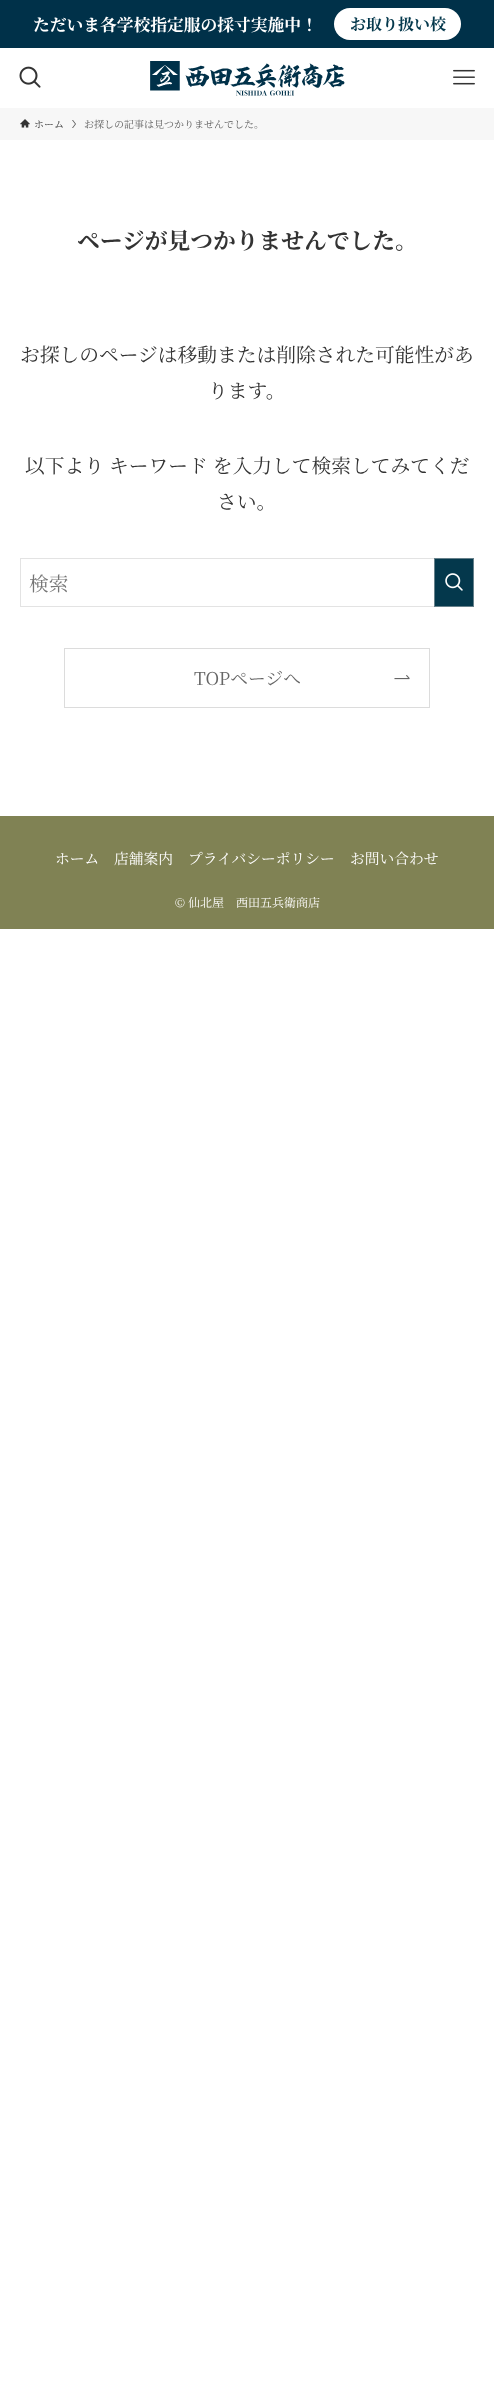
<?xml version="1.0" encoding="UTF-8"?>
<svg xmlns="http://www.w3.org/2000/svg" width="494" height="2391">
    <rect width="100%" height="100%" fill="#FFFFFF"/>
    <rect x="0" y="0" width="494" height="48" fill="#003149"/>
    <text x="33" y="31" font-family="Noto Serif JP" font-size="16.75" font-weight="700" fill="#FFFFFF">ただいま各学校指定服の採寸実施中！</text>
    <rect x="334" y="8" width="127" height="32" rx="16" fill="#FFFFFF"/>
    <text x="350" y="30" font-family="Noto Serif JP" font-size="16" font-weight="700" fill="#04384C">お取り扱い校</text>
    <image x="19" y="66" width="22" height="22" href="img_01.png"/>
    <image x="150" y="61" width="195" height="35" href="img_02.png"/>
    <image x="453" y="69" width="22" height="16" href="img_03.png"/>
    <rect x="0" y="108" width="494" height="32" fill="#F7F7F7"/>
    <image x="20" y="119" width="10" height="9" href="img_04.png"/>
    <text x="34" y="128" font-family="Noto Serif JP" font-size="10" fill="#333333">ホーム</text>
    <path d="M 73 120 H 72 L 75 124 L 72 128 H 73 L 76 124 Z" fill="#5A5A5A"/>
    <text x="84" y="128" font-family="Noto Serif JP" font-size="10" fill="#5A5A5A">お探しの記事は見つかりませんでした。</text>
    <text x="77" y="249" font-family="Noto Serif JP" font-size="22.75" font-weight="700" fill="#333333">ページが見つかりませんでした。</text>
    <text x="20" y="362" font-family="Noto Serif JP" font-size="19.75" fill="#333333">お探しのページは移動または削除された可能性があ</text>
    <text x="208" y="398" font-family="Noto Serif JP" font-size="19.75" fill="#333333">ります。</text>
    <text x="25" y="473" font-family="Noto Serif JP" font-size="19.75" fill="#333333">以下より キーワード を入力して検索してみてくだ</text>
    <text x="217" y="509" font-family="Noto Serif JP" font-size="19.75" fill="#333333">さい。</text>
    <rect x="20.5" y="558.5" width="453" height="48" fill="none" stroke="#E3E3E3"/>
    <text x="29" y="591" font-family="Noto Serif JP" font-size="19.75" fill="#757575">検索</text>
    <rect x="434.5" y="558.5" width="39" height="48" fill="#04384C" stroke="#66808A"/>
    <image x="445" y="573" width="18" height="18" href="img_05.png"/>
    <rect x="64.5" y="648.5" width="365" height="59" fill="none" stroke="#DCDCDC"/>
    <text x="194" y="685" font-family="Noto Serif JP" font-size="17.75" fill="#666666">TOPページへ</text>
    <image x="394" y="675" width="16" height="5" href="img_06.png"/>
    <rect x="0" y="816" width="494" height="113" fill="#808254"/>
    <text x="55" y="864" font-family="Noto Serif JP" font-size="14.75" fill="#FFFFFF">ホーム</text>
    <text x="114" y="864" font-family="Noto Serif JP" font-size="14.75" fill="#FFFFFF">店舗案内</text>
    <text x="188" y="864" font-family="Noto Serif JP" font-size="14.75" fill="#FFFFFF">プライバシーポリシー</text>
    <text x="350" y="864" font-family="Noto Serif JP" font-size="14.75" fill="#FFFFFF">お問い合わせ</text>
    <text x="175" y="907" font-family="Noto Serif JP" font-size="12" fill="#FFFFFF">© 仙北屋　西田五兵衛商店</text>
</svg>
